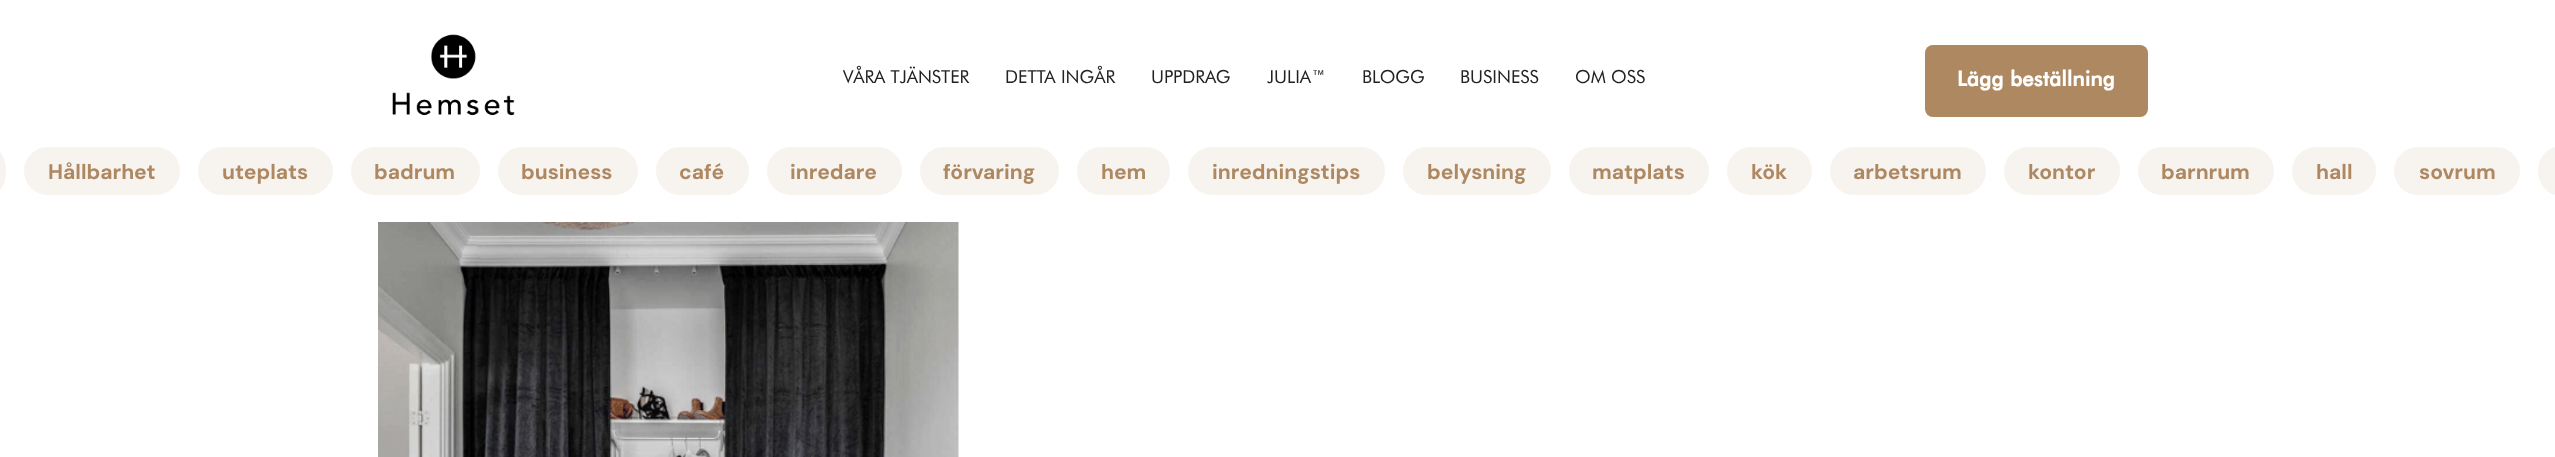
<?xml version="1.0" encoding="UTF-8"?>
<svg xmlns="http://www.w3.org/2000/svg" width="2555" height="457">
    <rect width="100%" height="100%" fill="#FFFFFF"/>
    <image x="392" y="34" width="123" height="82" href="img_01.png"/>
    <text x="843" y="83" font-family="Futura" font-size="18" fill="#222222">VÅRA TJÄNSTER</text>
    <text x="1005" y="83" font-family="Futura" font-size="18" fill="#222222">DETTA INGÅR</text>
    <text x="1151" y="83" font-family="Futura" font-size="18" fill="#222222">UPPDRAG</text>
    <text x="1267" y="83" font-family="Futura" font-size="18" fill="#222222">JULIA™</text>
    <text x="1362" y="83" font-family="Futura" font-size="18" fill="#222222">BLOGG</text>
    <text x="1460" y="83" font-family="Futura" font-size="18" fill="#222222">BUSINESS</text>
    <text x="1575" y="83" font-family="Futura" font-size="18" fill="#222222">OM OSS</text>
    <rect x="1925" y="45" width="223" height="72" rx="8" fill="#AD8861"/>
    <text x="1957" y="86" font-family="Futura" font-size="21" font-weight="700" fill="#FFFFFF">Lägg beställning</text>
    <rect x="-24" y="147" width="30" height="48" rx="24" fill="#F7F3EF"/>
    <rect x="24" y="147" width="156" height="48" rx="24" fill="#AD8861" fill-opacity="0.1"/>
    <text x="48" y="179" font-family="DM Sans" font-size="21" font-weight="700" fill="#AD8861">Hållbarhet</text>
    <rect x="198" y="147" width="135" height="48" rx="24" fill="#AD8861" fill-opacity="0.1"/>
    <text x="222" y="179" font-family="DM Sans" font-size="21" font-weight="700" fill="#AD8861">uteplats</text>
    <rect x="351" y="147" width="129" height="48" rx="24" fill="#AD8861" fill-opacity="0.1"/>
    <text x="374" y="179" font-family="DM Sans" font-size="21" font-weight="700" fill="#AD8861">badrum</text>
    <rect x="498" y="147" width="140" height="48" rx="24" fill="#AD8861" fill-opacity="0.1"/>
    <text x="521" y="179" font-family="DM Sans" font-size="21" font-weight="700" fill="#AD8861">business</text>
    <rect x="656" y="147" width="93" height="48" rx="24" fill="#AD8861" fill-opacity="0.1"/>
    <text x="679" y="179" font-family="DM Sans" font-size="21" font-weight="700" fill="#AD8861">café</text>
    <rect x="767" y="147" width="135" height="48" rx="24" fill="#AD8861" fill-opacity="0.1"/>
    <text x="790" y="179" font-family="DM Sans" font-size="21" font-weight="700" fill="#AD8861">inredare</text>
    <rect x="920" y="147" width="139" height="48" rx="24" fill="#AD8861" fill-opacity="0.1"/>
    <text x="943" y="179" font-family="DM Sans" font-size="21" font-weight="700" fill="#AD8861">förvaring</text>
    <rect x="1077" y="147" width="93" height="48" rx="24" fill="#AD8861" fill-opacity="0.1"/>
    <text x="1101" y="179" font-family="DM Sans" font-size="21" font-weight="700" fill="#AD8861">hem</text>
    <rect x="1188" y="147" width="197" height="48" rx="24" fill="#AD8861" fill-opacity="0.1"/>
    <text x="1212" y="179" font-family="DM Sans" font-size="21" font-weight="700" fill="#AD8861">inredningstips</text>
    <rect x="1403" y="147" width="148" height="48" rx="24" fill="#AD8861" fill-opacity="0.1"/>
    <text x="1427" y="179" font-family="DM Sans" font-size="21" font-weight="700" fill="#AD8861">belysning</text>
    <rect x="1569" y="147" width="140" height="48" rx="24" fill="#AD8861" fill-opacity="0.1"/>
    <text x="1592" y="179" font-family="DM Sans" font-size="21" font-weight="700" fill="#AD8861">matplats</text>
    <rect x="1727" y="147" width="85" height="48" rx="24" fill="#AD8861" fill-opacity="0.1"/>
    <text x="1751" y="179" font-family="DM Sans" font-size="21" font-weight="700" fill="#AD8861">kök</text>
    <rect x="1830" y="147" width="156" height="48" rx="24" fill="#AD8861" fill-opacity="0.1"/>
    <text x="1853" y="179" font-family="DM Sans" font-size="21" font-weight="700" fill="#AD8861">arbetsrum</text>
    <rect x="2004" y="147" width="116" height="48" rx="24" fill="#AD8861" fill-opacity="0.1"/>
    <text x="2028" y="179" font-family="DM Sans" font-size="21" font-weight="700" fill="#AD8861">kontor</text>
    <rect x="2138" y="147" width="136" height="48" rx="24" fill="#AD8861" fill-opacity="0.1"/>
    <text x="2161" y="179" font-family="DM Sans" font-size="21" font-weight="700" fill="#AD8861">barnrum</text>
    <rect x="2292" y="147" width="84" height="48" rx="24" fill="#AD8861" fill-opacity="0.1"/>
    <text x="2316" y="179" font-family="DM Sans" font-size="21" font-weight="700" fill="#AD8861">hall</text>
    <rect x="2394" y="147" width="126" height="48" rx="24" fill="#AD8861" fill-opacity="0.1"/>
    <text x="2419" y="179" font-family="DM Sans" font-size="21" font-weight="700" fill="#AD8861">sovrum</text>
    <rect x="2538" y="147" width="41" height="48" rx="24" fill="#F7F3EF"/>
    <image x="378" y="222" width="581" height="235" href="img_02.png"/>
</svg>
